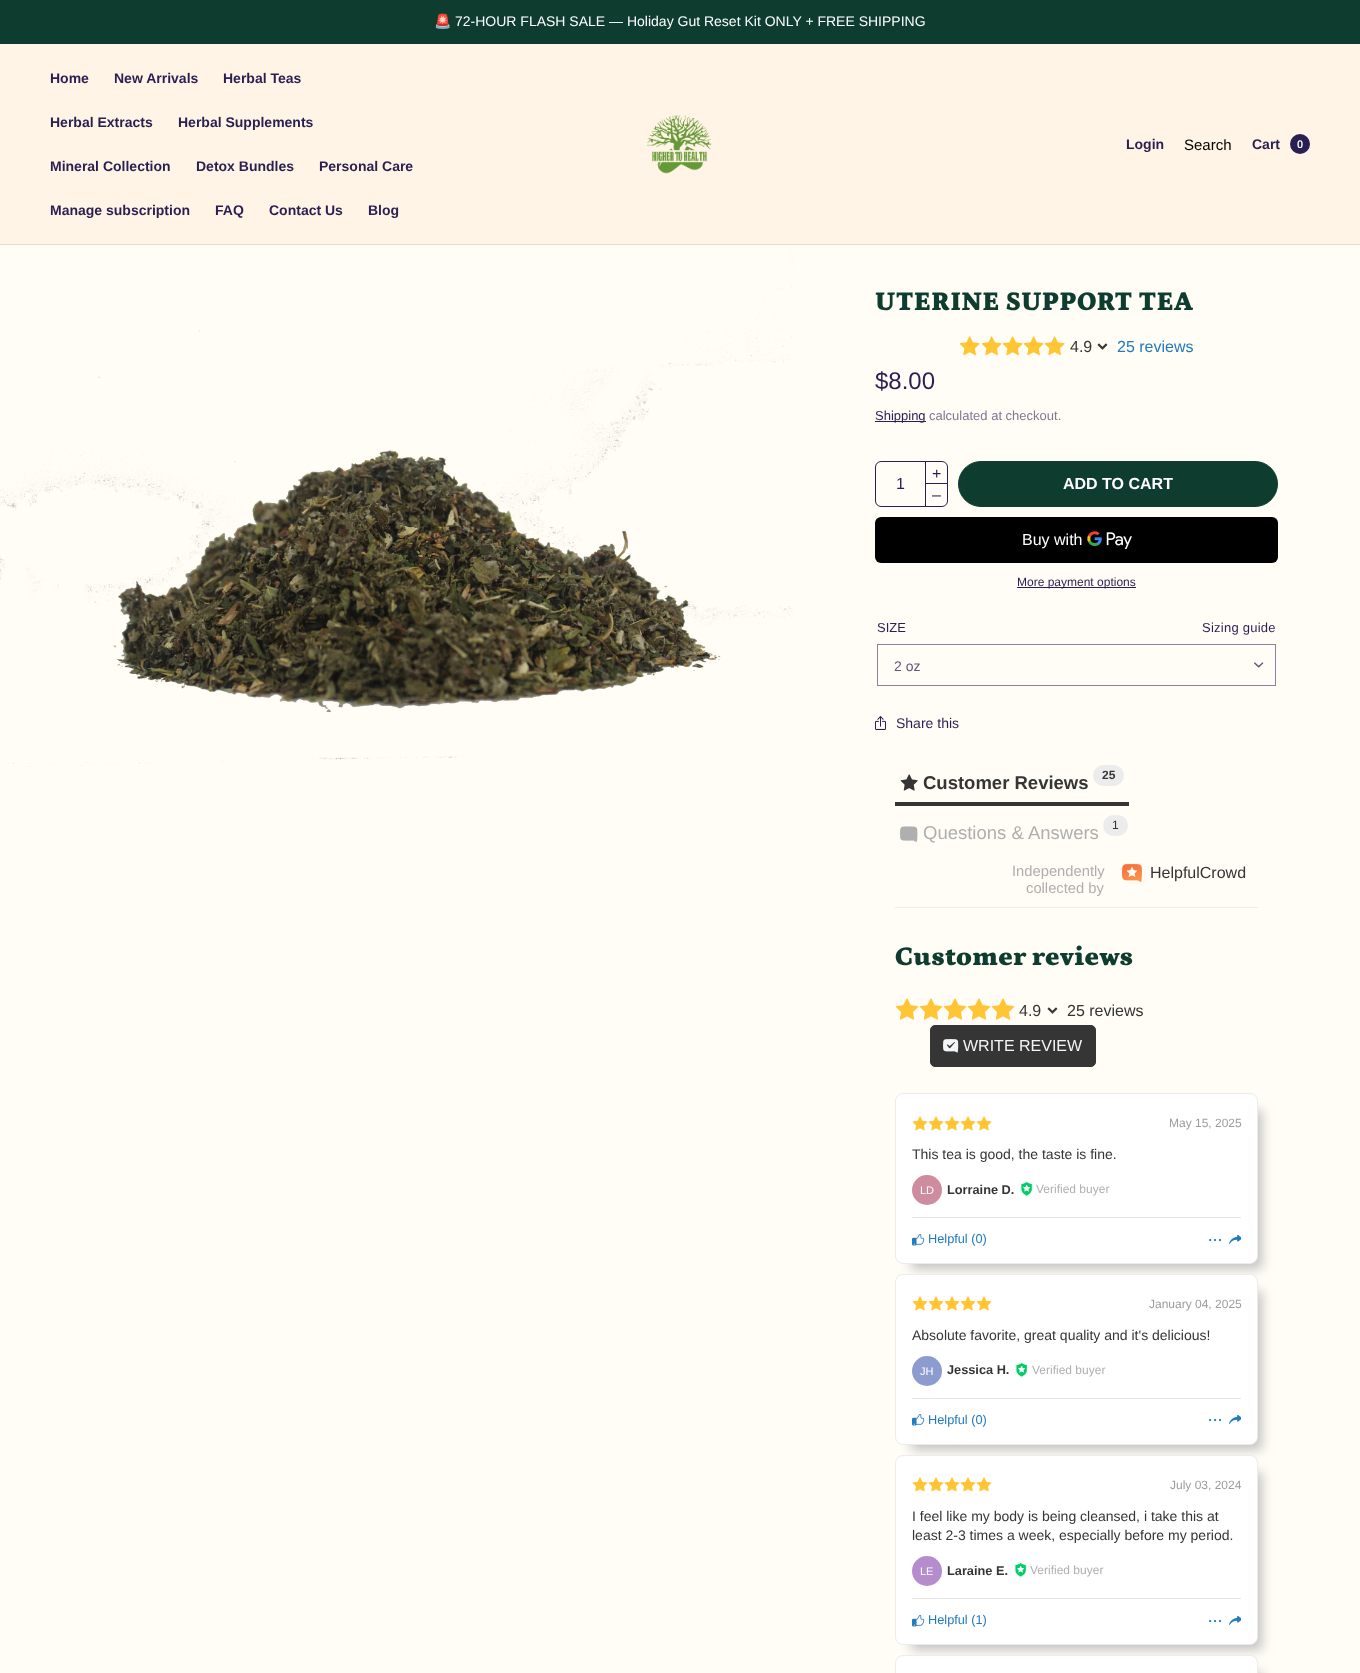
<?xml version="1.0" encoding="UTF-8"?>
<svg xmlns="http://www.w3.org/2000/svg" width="1360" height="1673">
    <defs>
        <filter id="blur1" x="-50%" y="-200%" width="200%" height="500%"><feGaussianBlur stdDeviation="6"/></filter>
    </defs>
    <rect width="100%" height="100%" fill="#FFFDF6"/>
    <rect x="0" y="0" width="1360" height="44" fill="#0E3D2F"/>
    <text x="434" y="26" font-family="Noto Color Emoji" font-size="14" fill="#FFFFFF">🚨</text>
    <text x="455" y="26" font-family="Arimo" font-size="14" fill="#FFFFFF">72-HOUR FLASH SALE — Holiday Gut Reset Kit ONLY + FREE SHIPPING</text>
    <rect x="0" y="44" width="1360" height="200" fill="#FFF4E5"/>
    <rect x="0" y="244" width="1360" height="1" fill="#EADBC7"/>
    <text x="50" y="83" font-family="Arimo" font-size="14" font-weight="700" fill="#291F51">Home</text>
    <text x="114" y="83" font-family="Arimo" font-size="14" font-weight="700" fill="#291F51">New Arrivals</text>
    <text x="223" y="83" font-family="Arimo" font-size="14" font-weight="700" fill="#291F51">Herbal Teas</text>
    <text x="50" y="127" font-family="Arimo" font-size="14" font-weight="700" fill="#291F51">Herbal Extracts</text>
    <text x="178" y="127" font-family="Arimo" font-size="14" font-weight="700" fill="#291F51">Herbal Supplements</text>
    <text x="50" y="171" font-family="Arimo" font-size="14" font-weight="700" fill="#291F51">Mineral Collection</text>
    <text x="196" y="171" font-family="Arimo" font-size="14" font-weight="700" fill="#291F51">Detox Bundles</text>
    <text x="319" y="171" font-family="Arimo" font-size="14" font-weight="700" fill="#291F51">Personal Care</text>
    <text x="50" y="215" font-family="Arimo" font-size="14" font-weight="700" fill="#291F51">Manage subscription</text>
    <text x="215" y="215" font-family="Arimo" font-size="14" font-weight="700" fill="#291F51">FAQ</text>
    <text x="269" y="215" font-family="Arimo" font-size="14" font-weight="700" fill="#291F51">Contact Us</text>
    <text x="368" y="215" font-family="Arimo" font-size="14" font-weight="700" fill="#291F51">Blog</text>
    <image x="647" y="115" width="65" height="59" href="img_01.png"/>
    <text x="1126" y="149" font-family="Arimo" font-size="14" font-weight="700" fill="#291F51">Login</text>
    <text x="1184" y="150" font-family="Arimo" font-size="15" fill="#000000">Search</text>
    <text x="1252" y="149" font-family="Arimo" font-size="14" font-weight="700" fill="#291F51">Cart</text>
    <circle cx="1300" cy="144" r="10" fill="#291F51"/>
    <text x="1297" y="148" font-family="Arimo" font-size="11" font-weight="600" fill="#FFFFFF">0</text>
    <image x="0" y="249" width="793" height="518" href="img_02.png"/>
    <text x="875" y="310" font-family="Petrona" font-size="27.25" font-weight="900" fill="#0E3D2F">UTERINE SUPPORT TEA</text>
    <image x="959" y="336" width="21" height="20" href="img_03.png"/>
    <image x="981" y="336" width="21" height="20" href="img_03.png"/>
    <image x="1002" y="336" width="21" height="20" href="img_03.png"/>
    <image x="1023" y="336" width="21" height="20" href="img_03.png"/>
    <image x="1044" y="336" width="21" height="20" href="img_03.png"/>
    <text x="1070" y="352" font-family="Arimo" font-size="16" fill="#353535">4.9</text>
    <image x="1097" y="343" width="11" height="7" href="img_04.png"/>
    <text x="1117" y="352" font-family="Arimo" font-size="16" fill="#227BBE">25 reviews</text>
    <text x="875" y="389" font-family="Arimo" font-size="24" fill="#291F51">$8.00</text>
    <rect x="875" y="421" width="51" height="1" fill="#291F51"/>
    <text x="875" y="420" font-family="Arimo" font-size="13" fill="#291F51">Shipping</text>
    <text x="929" y="420" font-family="Arimo" font-size="13" fill="#7F7893">calculated at checkout.</text>
    <path d="M 881 461.5 H 925.5 V 506.5 H 881 C 878 506.5 875.5 504 875.5 501 V 467 C 875.5 464 878 461.5 881 461.5 Z" fill="none" stroke="#291F51"/>
    <path d="M 925.5 461.5 H 942 C 945 461.5 947.5 464 947.5 467 V 483.5 H 925.5 Z" fill="none" stroke="#291F51"/>
    <text x="932" y="479" font-family="Arimo" font-size="16" fill="#291F51">+</text>
    <text x="896" y="489" font-family="Arimo" font-size="16" fill="#291F51">1</text>
    <path d="M 925.5 483.5 H 947.5 V 501 C 947.5 504 945 506.5 942 506.5 H 925.5 Z" fill="none" stroke="#291F51"/>
    <text x="932" y="500" font-family="Arimo" font-size="16" fill="#291F51">–</text>
    <rect x="958.5" y="461.5" width="319" height="45" rx="22.5" fill="#0E3D2F" stroke="#0E3D2F"/>
    <text x="1063" y="489" font-family="Arimo" font-size="16" font-weight="700" fill="#FFFFFF">ADD TO CART</text>
    <rect x="875" y="517" width="403" height="46" rx="6" fill="#000000"/>
    <text x="1022" y="545" font-family="Arimo" font-size="16" fill="#FFFFFF">Buy with</text>
    <image x="1087" y="531" width="45" height="18" href="img_05.png"/>
    <rect x="1017" y="587" width="119" height="1" fill="#291F51"/>
    <text x="1017" y="586" font-family="Arimo" font-size="12" fill="#291F51">More payment options</text>
    <text x="877" y="632" font-family="Arimo" font-size="13" fill="#291F51">SIZE</text>
    <text x="1202" y="632" font-family="Arimo" font-size="13" letter-spacing="0.25" fill="#291F51">Sizing guide</text>
    <rect x="877.5" y="644.5" width="398" height="41" fill="none" stroke="#89839B"/>
    <text x="894" y="671" font-family="Arimo" font-size="14" fill="#5F577A">2 oz</text>
    <image x="1254" y="662" width="10" height="6" href="img_06.png"/>
    <image x="875" y="716" width="11" height="14" href="img_07.png"/>
    <text x="896" y="728" font-family="Arimo" font-size="14" fill="#291F51">Share this</text>
    <rect x="895" y="907" width="363" height="1" fill="#ECECEC"/>
    <rect x="895" y="802" width="234" height="4" fill="#353535"/>
    <image x="900" y="774" width="18" height="17" href="img_08.png"/>
    <text x="923" y="789" font-family="Arimo" font-size="18.5" font-weight="700" fill="#353535">Customer Reviews</text>
    <rect x="1093" y="765" width="31" height="21" rx="10.5" fill="#ECECEC"/>
    <text x="1102" y="779" font-family="Arimo" font-size="12" font-weight="700" fill="#353535">25</text>
    <image x="900" y="826" width="18" height="16" href="img_09.png"/>
    <text x="923" y="839" font-family="Arimo" font-size="18.5" fill="#AFAFAF">Questions &amp; Answers</text>
    <rect x="1103" y="815" width="25" height="21" rx="10.5" fill="#ECECEC"/>
    <text x="1112" y="829" font-family="Arimo" font-size="12" fill="#353535">1</text>
    <text x="1012" y="876" font-family="Arimo" font-size="14.75" fill="#AFAFAF">Independently</text>
    <text x="1026" y="893" font-family="Arimo" font-size="14.75" fill="#AFAFAF">collected by</text>
    <image x="1122" y="863" width="20" height="19" href="img_10.png"/>
    <text x="1150" y="878" font-family="Liberation Sans" font-size="16" fill="#353535">HelpfulCrowd</text>
    <text x="895" y="965" font-family="Petrona" font-size="27.25" font-weight="900" fill="#0E3D2F">Customer reviews</text>
    <image x="895" y="998" width="24" height="22" href="img_11.png"/>
    <image x="919" y="998" width="24" height="22" href="img_11.png"/>
    <image x="943" y="998" width="24" height="22" href="img_11.png"/>
    <image x="967" y="998" width="24" height="22" href="img_11.png"/>
    <image x="991" y="998" width="24" height="22" href="img_11.png"/>
    <text x="1019" y="1016" font-family="Arimo" font-size="16" fill="#353535">4.9</text>
    <image x="1047" y="1007" width="11" height="7" href="img_04.png"/>
    <text x="1067" y="1016" font-family="Arimo" font-size="16" fill="#353535">25 reviews</text>
    <rect x="930.5" y="1025.5" width="165" height="41" rx="4.5" fill="#353535" stroke="#353535"/>
    <image x="943" y="1039" width="16" height="14" href="img_12.png"/>
    <text x="963" y="1051" font-family="Arimo" font-size="16" fill="#F4F5F7">WRITE REVIEW</text>
    <rect x="911" y="1110" width="351" height="159" rx="2" fill="#C1C1C1" filter="url(#blur1)"/>
    <rect x="895.5" y="1093.5" width="362" height="170" rx="7.5" fill="#FFFFFF" stroke="#ECECEC"/>
    <image x="912" y="1116" width="16" height="15" href="img_13.png"/>
    <image x="928" y="1116" width="16" height="15" href="img_13.png"/>
    <image x="944" y="1116" width="16" height="15" href="img_13.png"/>
    <image x="960" y="1116" width="16" height="15" href="img_13.png"/>
    <image x="976" y="1116" width="16" height="15" href="img_13.png"/>
    <text x="1169" y="1127" font-family="Arimo" font-size="12" fill="#9C9C9C">May 15, 2025</text>
    <text x="912" y="1159" font-family="Arimo" font-size="14" fill="#353535">This tea is good, the taste is fine.</text>
    <circle cx="927" cy="1190" r="15" fill="#CE8D9E"/>
    <text x="920" y="1194" font-family="Arimo" font-size="11" fill="#FFFFFF">LD</text>
    <text x="947" y="1194" font-family="Arimo" font-size="12.75" font-weight="700" fill="#353535">Lorraine D.</text>
    <image x="1020" y="1180" width="13" height="17" href="img_14.png"/>
    <text x="1036" y="1193" font-family="Arimo" font-size="12" fill="#AFAFAF">Verified buyer</text>
    <rect x="912" y="1217" width="329" height="1" fill="#E6E6E6"/>
    <image x="912" y="1234" width="13" height="12" href="img_15.png"/>
    <text x="928" y="1243" font-family="Arimo" font-size="12.75" fill="#227BBE">Helpful (0)</text>
    <image x="1209" y="1238" width="13" height="4" href="img_16.png"/>
    <image x="1229" y="1234" width="12" height="10" href="img_17.png"/>
    <rect x="911" y="1291" width="351" height="159" rx="2" fill="#C1C1C1" filter="url(#blur1)"/>
    <rect x="895.5" y="1274.5" width="362" height="170" rx="7.5" fill="#FFFFFF" stroke="#ECECEC"/>
    <image x="912" y="1296" width="16" height="15" href="img_13.png"/>
    <image x="928" y="1296" width="16" height="15" href="img_13.png"/>
    <image x="944" y="1296" width="16" height="15" href="img_13.png"/>
    <image x="960" y="1296" width="16" height="15" href="img_13.png"/>
    <image x="976" y="1296" width="16" height="15" href="img_13.png"/>
    <text x="1149" y="1308" font-family="Arimo" font-size="12" fill="#9C9C9C">January 04, 2025</text>
    <text x="912" y="1340" font-family="Arimo" font-size="14" fill="#353535">Absolute favorite, great quality and it's delicious!</text>
    <circle cx="927" cy="1371" r="15" fill="#8D9CCE"/>
    <text x="920" y="1375" font-family="Arimo" font-size="11" fill="#FFFFFF">JH</text>
    <text x="947" y="1374" font-family="Arimo" font-size="12.75" font-weight="700" fill="#353535">Jessica H.</text>
    <image x="1015" y="1361" width="13" height="17" href="img_14.png"/>
    <text x="1032" y="1374" font-family="Arimo" font-size="12" fill="#AFAFAF">Verified buyer</text>
    <rect x="912" y="1398" width="329" height="1" fill="#E6E6E6"/>
    <image x="912" y="1414" width="13" height="12" href="img_15.png"/>
    <text x="928" y="1424" font-family="Arimo" font-size="12.75" fill="#227BBE">Helpful (0)</text>
    <image x="1209" y="1418" width="13" height="4" href="img_16.png"/>
    <image x="1229" y="1414" width="12" height="10" href="img_17.png"/>
    <rect x="911" y="1472" width="351" height="178" rx="2" fill="#C1C1C1" filter="url(#blur1)"/>
    <rect x="895.5" y="1455.5" width="362" height="189" rx="7.5" fill="#FFFFFF" stroke="#ECECEC"/>
    <image x="912" y="1477" width="16" height="15" href="img_13.png"/>
    <image x="928" y="1477" width="16" height="15" href="img_13.png"/>
    <image x="944" y="1477" width="16" height="15" href="img_13.png"/>
    <image x="960" y="1477" width="16" height="15" href="img_13.png"/>
    <image x="976" y="1477" width="16" height="15" href="img_13.png"/>
    <text x="1170" y="1489" font-family="Arimo" font-size="12" fill="#9C9C9C">July 03, 2024</text>
    <text font-family="Arimo" font-size="14" fill="#353535">
        <tspan x="912" y="1521">I feel like my body is being cleansed, i take this at</tspan>
        <tspan x="912" y="1540">least 2-3 times a week, especially before my period.</tspan>
    </text>
    <circle cx="927" cy="1571" r="15" fill="#B58DCE"/>
    <text x="920" y="1575" font-family="Arimo" font-size="11" fill="#FFFFFF">LE</text>
    <text x="947" y="1575" font-family="Arimo" font-size="12.75" font-weight="700" fill="#353535">Laraine E.</text>
    <image x="1014" y="1561" width="13" height="17" href="img_14.png"/>
    <text x="1030" y="1574" font-family="Arimo" font-size="12" fill="#AFAFAF">Verified buyer</text>
    <rect x="912" y="1598" width="329" height="1" fill="#E6E6E6"/>
    <image x="912" y="1615" width="13" height="12" href="img_15.png"/>
    <text x="928" y="1624" font-family="Arimo" font-size="12.75" fill="#227BBE">Helpful (1)</text>
    <image x="1209" y="1619" width="13" height="4" href="img_16.png"/>
    <image x="1229" y="1615" width="12" height="10" href="img_17.png"/>
    <rect x="911" y="1672" width="351" height="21" rx="2" fill="#C1C1C1" filter="url(#blur1)"/>
    <rect x="895.5" y="1655.5" width="362" height="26" rx="7.5" fill="#FFFFFF" stroke="#ECECEC"/>
</svg>
